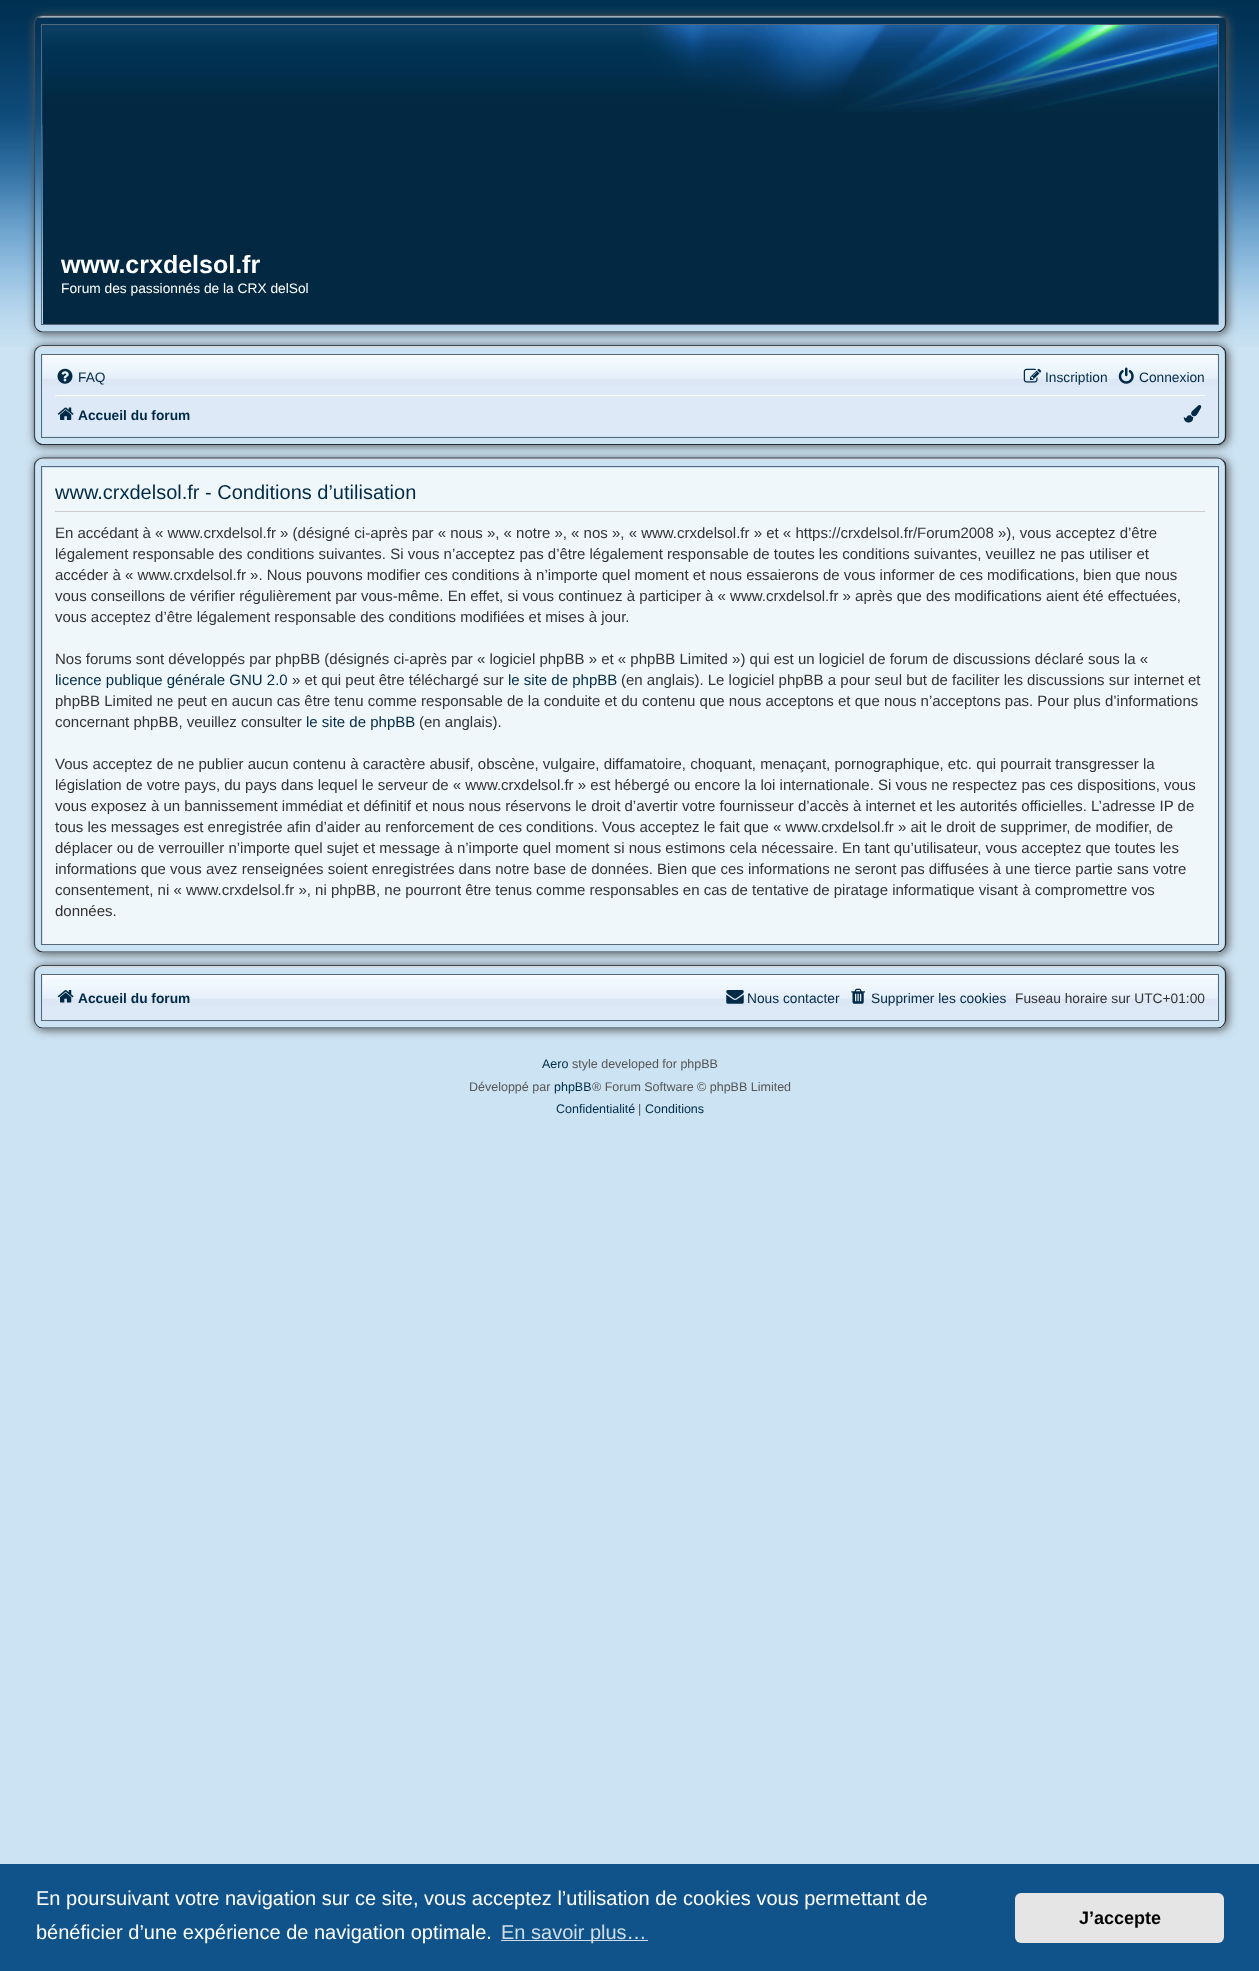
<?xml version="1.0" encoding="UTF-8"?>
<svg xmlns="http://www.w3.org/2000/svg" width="1259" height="1971">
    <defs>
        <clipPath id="clip1"><path d="M 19 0 H 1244 V 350 H 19 Z M 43 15 H 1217 C 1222 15 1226 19 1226 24 V 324 C 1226 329 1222 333 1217 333 H 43 C 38 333 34 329 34 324 V 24 C 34 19 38 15 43 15 Z" clip-rule="evenodd"/></clipPath>
        <filter id="blur1" x="-50%" y="-200%" width="200%" height="500%"><feGaussianBlur stdDeviation="5"/></filter>
        <clipPath id="clip2"><path d="M 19 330 H 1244 V 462 H 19 Z M 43 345 H 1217 C 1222 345 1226 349 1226 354 V 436 C 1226 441 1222 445 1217 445 H 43 C 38 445 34 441 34 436 V 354 C 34 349 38 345 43 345 Z" clip-rule="evenodd"/></clipPath>
        <clipPath id="clip3"><path d="M 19 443 H 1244 V 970 H 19 Z M 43 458 H 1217 C 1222 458 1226 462 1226 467 V 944 C 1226 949 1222 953 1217 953 H 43 C 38 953 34 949 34 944 V 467 C 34 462 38 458 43 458 Z" clip-rule="evenodd"/></clipPath>
        <clipPath id="clip4"><path d="M 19 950 H 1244 V 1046 H 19 Z M 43 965 H 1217 C 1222 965 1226 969 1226 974 V 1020 C 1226 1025 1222 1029 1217 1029 H 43 C 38 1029 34 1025 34 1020 V 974 C 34 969 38 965 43 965 Z" clip-rule="evenodd"/></clipPath>
    </defs>
    <rect width="100%" height="100%" fill="#CCE3F3"/>
    <image x="0" y="0" width="1259" height="346" href="img_01.png"/>
    <g clip-path="url(#clip1)">
        <rect x="35" y="16" width="1193" height="318" rx="9" fill="#555555" filter="url(#blur1)"/>
    </g>
    <image x="35" y="16" width="1190" height="2" href="img_02.png"/>
    <path d="M 37 18 C 38.5 16.5 40.5 15.5 42.5 15.5 H 1217.5 C 1219.5 15.5 1221.5 16.5 1223 18" fill="none" stroke="#394854" stroke-width="1.2"/>
    <path d="M 1223 18 C 1225 19.5 1225.5 21.5 1225.5 24 V 324 C 1225.5 326 1225 328 1223 329.5" fill="none" stroke="#212930" stroke-width="1.2"/>
    <path d="M 1223 329.5 C 1221.5 331 1219.5 332 1217.5 332 H 42.5 C 40.5 332 38.5 331 37 329.5" fill="none" stroke="#263038" stroke-width="1.2"/>
    <path d="M 37 329.5 C 35 328 34.5 326 34.5 324 V 24 C 34.5 21.5 35 19.5 37 18" fill="none" stroke="#3A4955" stroke-width="1.2"/>
    <rect x="41.5" y="24.5" width="1177" height="300" fill="none" stroke="#566877"/>
    <rect x="43" y="25" width="1175" height="299" fill="#032942"/>
    <image x="42" y="25" width="1176" height="100" href="img_03.png"/>
    <image x="642" y="25" width="576" height="87" href="img_04.png"/>
    <text x="61" y="273" font-family="Liberation Sans" font-size="25" font-weight="700" fill="#FFFFFF">www.crxdelsol.fr</text>
    <text x="61" y="293" font-family="Liberation Sans" font-size="13.75" fill="#FFFFFF">Forum des passionnés de la CRX delSol</text>
    <g clip-path="url(#clip2)">
        <rect x="35" y="346" width="1193" height="100" rx="9" fill="#555555" filter="url(#blur1)"/>
    </g>
    <image x="36" y="346" width="1188" height="2" href="img_05.png"/>
    <path d="M 37 348 C 38.5 346.5 40.5 345.5 42.5 345.5 H 1217.5 C 1219.5 345.5 1221.5 346.5 1223 348" fill="none" stroke="#394854" stroke-width="1.2"/>
    <path d="M 1223 348 C 1225 349.5 1225.5 351.5 1225.5 354 V 436 C 1225.5 438.5 1225 440.5 1223 442" fill="none" stroke="#212930" stroke-width="1.2"/>
    <path d="M 1223 442 C 1221.5 443.5 1219.5 444.5 1217.5 444.5 H 42.5 C 40.5 444.5 38.5 443.5 37 442" fill="none" stroke="#263038" stroke-width="1.2"/>
    <path d="M 37 442 C 35 440.5 34.5 438.5 34.5 436 V 354 C 34.5 351.5 35 349.5 37 348" fill="none" stroke="#3A4955" stroke-width="1.2"/>
    <rect x="41.5" y="354.5" width="1177" height="83" fill="none" stroke="#566877"/>
    <rect x="43" y="355" width="1175" height="81" fill="#DDE9F7"/>
    <image x="42" y="355" width="1176" height="44" href="img_06.png"/>
    <image x="57" y="368" width="16" height="16" href="img_07.png"/>
    <text x="78" y="382" font-family="Liberation Sans" font-size="13.75" fill="#002A46">FAQ</text>
    <image x="1023" y="368" width="19" height="15" href="img_08.png"/>
    <text x="1045" y="382" font-family="Liberation Sans" font-size="13.75" fill="#002A46">Inscription</text>
    <image x="1118" y="367" width="16" height="17" href="img_09.png"/>
    <text x="1139" y="382" font-family="Liberation Sans" font-size="13.75" fill="#002A46">Connexion</text>
    <rect x="55" y="395" width="1150" height="1" fill="#FFFFFF"/>
    <image x="57" y="407" width="17" height="13" href="img_10.png"/>
    <text x="78" y="420" font-family="Liberation Sans" font-size="13.75" font-weight="700" fill="#002A46">Accueil du forum</text>
    <image x="1183" y="405" width="19" height="18" href="img_11.png"/>
    <g clip-path="url(#clip3)">
        <rect x="35" y="459" width="1193" height="495" rx="9" fill="#555555" filter="url(#blur1)"/>
    </g>
    <image x="36" y="458" width="1188" height="2" href="img_12.png"/>
    <path d="M 37 460.5 C 38.5 459 40.5 458 42.5 458 H 1217.5 C 1219.5 458 1221.5 459 1223 460.5" fill="none" stroke="#394854" stroke-width="1.2"/>
    <path d="M 1223 460.5 C 1225 462 1225.5 464 1225.5 466 V 944 C 1225.5 946 1225 948 1223 949.5" fill="none" stroke="#212930" stroke-width="1.2"/>
    <path d="M 1223 949.5 C 1221.5 951 1219.5 952 1217.5 952 H 42.5 C 40.5 952 38.5 951 37 949.5" fill="none" stroke="#263038" stroke-width="1.2"/>
    <path d="M 37 949.5 C 35 948 34.5 946 34.5 944 V 466 C 34.5 464 35 462 37 460.5" fill="none" stroke="#3A4955" stroke-width="1.2"/>
    <rect x="41.5" y="466.5" width="1177" height="478" fill="none" stroke="#566877"/>
    <rect x="43" y="468" width="1175" height="476" fill="#EFF7FB"/>
    <rect x="55" y="511" width="1150" height="1" fill="#CCCCCC"/>
    <text x="55" y="499" font-family="Liberation Sans" font-size="20" fill="#002A46">www.crxdelsol.fr - Conditions d’utilisation</text>
    <text font-family="Liberation Sans" font-size="15" fill="#333333">
        <tspan x="55" y="538">En accédant à « www.crxdelsol.fr » (désigné ci-après par « nous », « notre », « nos », « www.crxdelsol.fr » et « https://crxdelsol.fr/Forum2008 »), vous acceptez d’être</tspan>
        <tspan x="55" y="559">légalement responsable des conditions suivantes. Si vous n’acceptez pas d’être légalement responsable de toutes les conditions suivantes, veuillez ne pas utiliser et</tspan>
        <tspan x="55" y="580">accéder à « www.crxdelsol.fr ». Nous pouvons modifier ces conditions à n’importe quel moment et nous essaierons de vous informer de ces modifications, bien que nous</tspan>
        <tspan x="55" y="601">vous conseillons de vérifier régulièrement par vous-même. En effet, si vous continuez à participer à « www.crxdelsol.fr » après que des modifications aient été effectuées,</tspan>
        <tspan x="55" y="622">vous acceptez d’être légalement responsable des conditions modifiées et mises à jour.</tspan>
    </text>
    <text x="55" y="664" font-family="Liberation Sans" font-size="15" fill="#333333">Nos forums sont développés par phpBB (désignés ci-après par « logiciel phpBB » et « phpBB Limited ») qui est un logiciel de forum de discussions déclaré sous la «</text>
    <text x="55" y="685" font-family="Liberation Sans" font-size="15" fill="#002A46">licence publique générale GNU 2.0</text>
    <text x="292" y="685" font-family="Liberation Sans" font-size="15" fill="#333333">» et qui peut être téléchargé sur</text>
    <text x="508" y="685" font-family="Liberation Sans" font-size="15" fill="#002A46">le site de phpBB</text>
    <text x="621" y="685" font-family="Liberation Sans" font-size="15" fill="#333333">(en anglais). Le logiciel phpBB a pour seul but de faciliter les discussions sur internet et</text>
    <text font-family="Liberation Sans" font-size="15" fill="#333333">
        <tspan x="55" y="706">phpBB Limited ne peut en aucun cas être tenu comme responsable de la conduite et du contenu que nous acceptons et que nous n’acceptons pas. Pour plus d’informations</tspan>
        <tspan x="55" y="727">concernant phpBB, veuillez consulter</tspan>
    </text>
    <text x="306" y="727" font-family="Liberation Sans" font-size="15" fill="#002A46">le site de phpBB</text>
    <text x="419" y="727" font-family="Liberation Sans" font-size="15" fill="#333333">(en anglais).</text>
    <text font-family="Liberation Sans" font-size="15" fill="#333333">
        <tspan x="55" y="769">Vous acceptez de ne publier aucun contenu à caractère abusif, obscène, vulgaire, diffamatoire, choquant, menaçant, pornographique, etc. qui pourrait transgresser la</tspan>
        <tspan x="55" y="790">législation de votre pays, du pays dans lequel le serveur de « www.crxdelsol.fr » est hébergé ou encore la loi internationale. Si vous ne respectez pas ces dispositions, vous</tspan>
        <tspan x="55" y="811">vous exposez à un bannissement immédiat et définitif et nous nous réservons le droit d’avertir votre fournisseur d’accès à internet et les autorités officielles. L’adresse IP de</tspan>
        <tspan x="55" y="832">tous les messages est enregistrée afin d’aider au renforcement de ces conditions. Vous acceptez le fait que « www.crxdelsol.fr » ait le droit de supprimer, de modifier, de</tspan>
        <tspan x="55" y="853">déplacer ou de verrouiller n’importe quel sujet et message à n’importe quel moment si nous estimons cela nécessaire. En tant qu’utilisateur, vous acceptez que toutes les</tspan>
        <tspan x="55" y="874">informations que vous avez renseignées soient enregistrées dans notre base de données. Bien que ces informations ne seront pas diffusées à une tierce partie sans votre</tspan>
        <tspan x="55" y="895">consentement, ni « www.crxdelsol.fr », ni phpBB, ne pourront être tenus comme responsables en cas de tentative de piratage informatique visant à compromettre vos</tspan>
        <tspan x="55" y="916">données.</tspan>
    </text>
    <g clip-path="url(#clip4)">
        <rect x="35" y="966" width="1193" height="64" rx="9" fill="#555555" filter="url(#blur1)"/>
    </g>
    <image x="36" y="966" width="1188" height="2" href="img_05.png"/>
    <path d="M 37 968 C 38.5 966.5 40.5 965.5 42.5 965.5 H 1217.5 C 1219.5 965.5 1221.5 966.5 1223 968" fill="none" stroke="#394854" stroke-width="1.2"/>
    <path d="M 1223 968 C 1225 969.5 1225.5 971.5 1225.5 974 V 1020 C 1225.5 1022 1225 1024 1223 1025.5" fill="none" stroke="#212930" stroke-width="1.2"/>
    <path d="M 1223 1025.5 C 1221.5 1027.5 1219.5 1028 1217.5 1028 H 42.5 C 40.5 1028 38.5 1027.5 37 1025.5" fill="none" stroke="#263038" stroke-width="1.2"/>
    <path d="M 37 1025.5 C 35 1024 34.5 1022 34.5 1020 V 974 C 34.5 971.5 35 969.5 37 968" fill="none" stroke="#3A4955" stroke-width="1.2"/>
    <rect x="41.5" y="974.5" width="1177" height="46" fill="none" stroke="#566877"/>
    <rect x="43" y="975" width="1175" height="45" fill="#DDE9F7"/>
    <image x="42" y="975" width="1176" height="44" href="img_06.png"/>
    <image x="57" y="990" width="17" height="13" href="img_13.png"/>
    <text x="78" y="1003" font-family="Liberation Sans" font-size="13.75" font-weight="700" fill="#002A46">Accueil du forum</text>
    <image x="726" y="990" width="18" height="14" href="img_14.png"/>
    <text x="747" y="1003" font-family="Liberation Sans" font-size="13.75" fill="#002A46">Nous contacter</text>
    <image x="851" y="988" width="14" height="16" href="img_15.png"/>
    <text x="871" y="1003" font-family="Liberation Sans" font-size="13.75" fill="#002A46">Supprimer les cookies</text>
    <text x="1015" y="1003" font-family="Liberation Sans" font-size="13.75" fill="#333333">Fuseau horaire sur UTC+01:00</text>
    <text x="542" y="1068" font-family="Liberation Sans" font-size="12.5" fill="#002A46">Aero</text>
    <text x="572" y="1068" font-family="Liberation Sans" font-size="12.5" fill="#555555">style developed for phpBB</text>
    <text x="469" y="1091" font-family="Liberation Sans" font-size="12.5" fill="#555555">Développé par</text>
    <text x="554" y="1091" font-family="Liberation Sans" font-size="12.5" fill="#002A46">phpBB</text>
    <text x="592" y="1091" font-family="Liberation Sans" font-size="12.5" fill="#555555">® Forum Software © phpBB Limited</text>
    <text x="556" y="1113" font-family="Liberation Sans" font-size="12.5" fill="#002A46">Confidentialité</text>
    <text x="638" y="1113" font-family="Liberation Sans" font-size="12.5" fill="#555555">|</text>
    <text x="645" y="1113" font-family="Liberation Sans" font-size="12.5" fill="#002A46">Conditions</text>
    <rect x="0" y="1864" width="1259" height="107" fill="#0F538A"/>
    <text font-family="Liberation Sans" font-size="20" fill="#FFFFFF">
        <tspan x="36" y="1905">En poursuivant votre navigation sur ce site, vous acceptez l’utilisation de cookies vous permettant de</tspan>
        <tspan x="36" y="1939">bénéficier d’une expérience de navigation optimale.</tspan>
    </text>
    <rect x="501" y="1940" width="147" height="1" fill="#CFDDE8"/>
    <text x="501" y="1939" font-family="Liberation Sans" font-size="20" fill="#CFDDE8">En savoir plus…</text>
    <rect x="1015" y="1893" width="209" height="50" rx="6" fill="#E5E5E5"/>
    <text x="1079" y="1924" font-family="Liberation Sans" font-size="18" font-weight="700" fill="#000000">J’accepte</text>
</svg>
